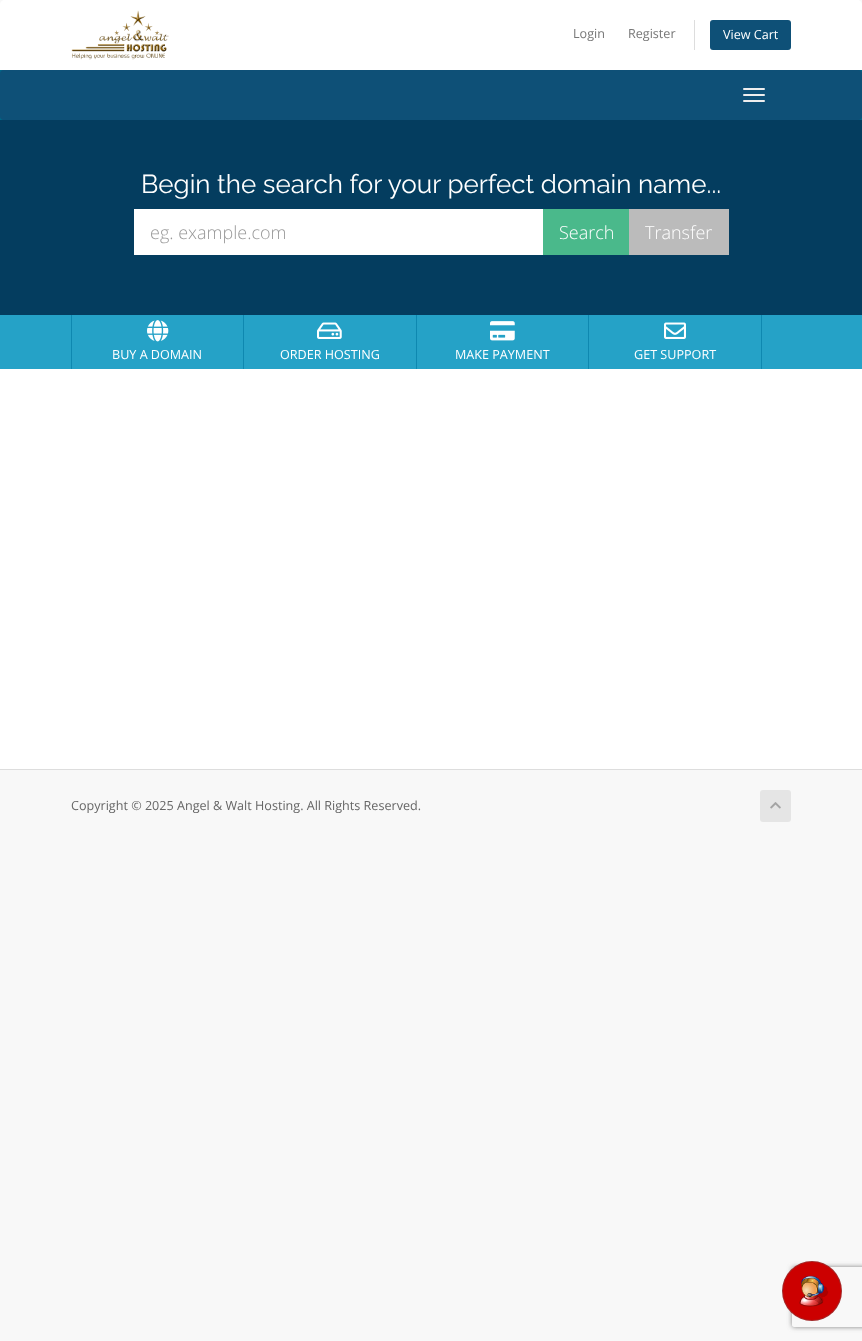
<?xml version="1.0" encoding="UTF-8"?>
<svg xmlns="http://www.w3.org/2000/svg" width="862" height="1341">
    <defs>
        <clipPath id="clip1"><path d="M 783 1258 H 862 V 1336 H 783 Z M 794 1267 H 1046 C 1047 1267 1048 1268 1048 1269 V 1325 C 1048 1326 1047 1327 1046 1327 H 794 C 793 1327 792 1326 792 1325 V 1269 C 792 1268 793 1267 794 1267 Z" clip-rule="evenodd"/></clipPath>
        <filter id="blur1" x="-50%" y="-200%" width="200%" height="500%"><feGaussianBlur stdDeviation="2.5"/></filter>
    </defs>
    <rect width="100%" height="100%" fill="#F8F8F8"/>
    <path d="M 5 0 H 857 C 860 0 862 2 862 5 V 70 H 0 V 5 C 0 2 2 0 5 0 Z" fill="#FFFFFF"/>
    <image x="71" y="10" width="98" height="50" href="img_01.png"/>
    <text x="573" y="38" font-family="Open Sans" font-size="12.6" fill="#777777">Login</text>
    <text x="628" y="38" font-family="Open Sans" font-size="12.6" fill="#777777">Register</text>
    <rect x="694" y="20" width="1" height="30" fill="#DDDDDD"/>
    <rect x="710" y="20" width="81" height="30" rx="3" fill="#0E5077"/>
    <text x="723" y="39" font-family="Open Sans" font-size="12.6" fill="#FFFFFF">View Cart</text>
    <rect x="0" y="70" width="862" height="50" fill="#006687"/>
    <rect x="0" y="70" width="862" height="50" rx="4" fill="#0E5077"/>
    <rect x="743" y="88" width="22" height="2" rx="1" fill="#EEEEEE"/>
    <rect x="743" y="94" width="22" height="2" rx="1" fill="#EEEEEE"/>
    <rect x="743" y="100" width="22" height="2" rx="1" fill="#EEEEEE"/>
    <rect x="0" y="120" width="862" height="195" fill="#043D5F"/>
    <text x="141" y="193" font-family="Raleway" font-size="26" fill="#FFFFFF">Begin the search for your perfect domain name...</text>
    <rect x="134" y="209" width="409" height="46" fill="#FFFFFF"/>
    <text x="150" y="239" font-family="Open Sans" font-size="18" font-weight="300" fill="#999999">eg. example.com</text>
    <rect x="543" y="209" width="86" height="46" fill="#4AB98B"/>
    <text x="559" y="239" font-family="Open Sans" font-size="18" font-weight="300" fill="#FFFFFF">Search</text>
    <rect x="629" y="209" width="100" height="46" fill="#BBBBBB"/>
    <text x="645" y="239" font-family="Open Sans" font-size="18" font-weight="300" fill="#FFFFFF">Transfer</text>
    <g clip-path="url(#clip1)">
        <rect x="792" y="1267" width="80" height="60" rx="2" fill="#808080" filter="url(#blur1)"/>
    </g>
    <rect x="0" y="315" width="862" height="54" fill="#25A2C7"/>
    <rect x="243" y="315" width="1" height="54" fill="#0E88B0"/>
    <rect x="71" y="315" width="1" height="54" fill="#0E88B0"/>
    <image x="147" y="320" width="22" height="22" href="img_02.png"/>
    <text x="112" y="359" font-family="Open Sans" font-size="12.6" fill="#FFFFFF">BUY A DOMAIN</text>
    <rect x="416" y="315" width="1" height="54" fill="#0E88B0"/>
    <image x="317" y="322" width="25" height="17" href="img_03.png"/>
    <text x="280" y="359" font-family="Open Sans" font-size="12.6" fill="#FFFFFF">ORDER HOSTING</text>
    <rect x="588" y="315" width="1" height="54" fill="#0E88B0"/>
    <image x="490" y="321" width="25" height="20" href="img_04.png"/>
    <text x="455" y="359" font-family="Open Sans" font-size="12.6" fill="#FFFFFF">MAKE PAYMENT</text>
    <rect x="761" y="315" width="1" height="54" fill="#0E88B0"/>
    <image x="664" y="322" width="22" height="17" href="img_05.png"/>
    <text x="634" y="359" font-family="Open Sans" font-size="12.6" fill="#FFFFFF">GET SUPPORT</text>
    <rect x="0" y="369" width="862" height="400" fill="#FFFFFF"/>
    <rect x="0" y="769" width="862" height="1" fill="#DDDDDD"/>
    <text x="71" y="810" font-family="Open Sans" font-size="12.6" fill="#666666">Copyright © 2025 Angel &amp; Walt Hosting. All Rights Reserved.</text>
    <rect x="760" y="790" width="31" height="32" rx="3" fill="#E5E5E5"/>
    <image x="770" y="802" width="11" height="7" href="img_06.png"/>
    <image x="782" y="1261" width="60" height="60" href="img_07.png"/>
</svg>
